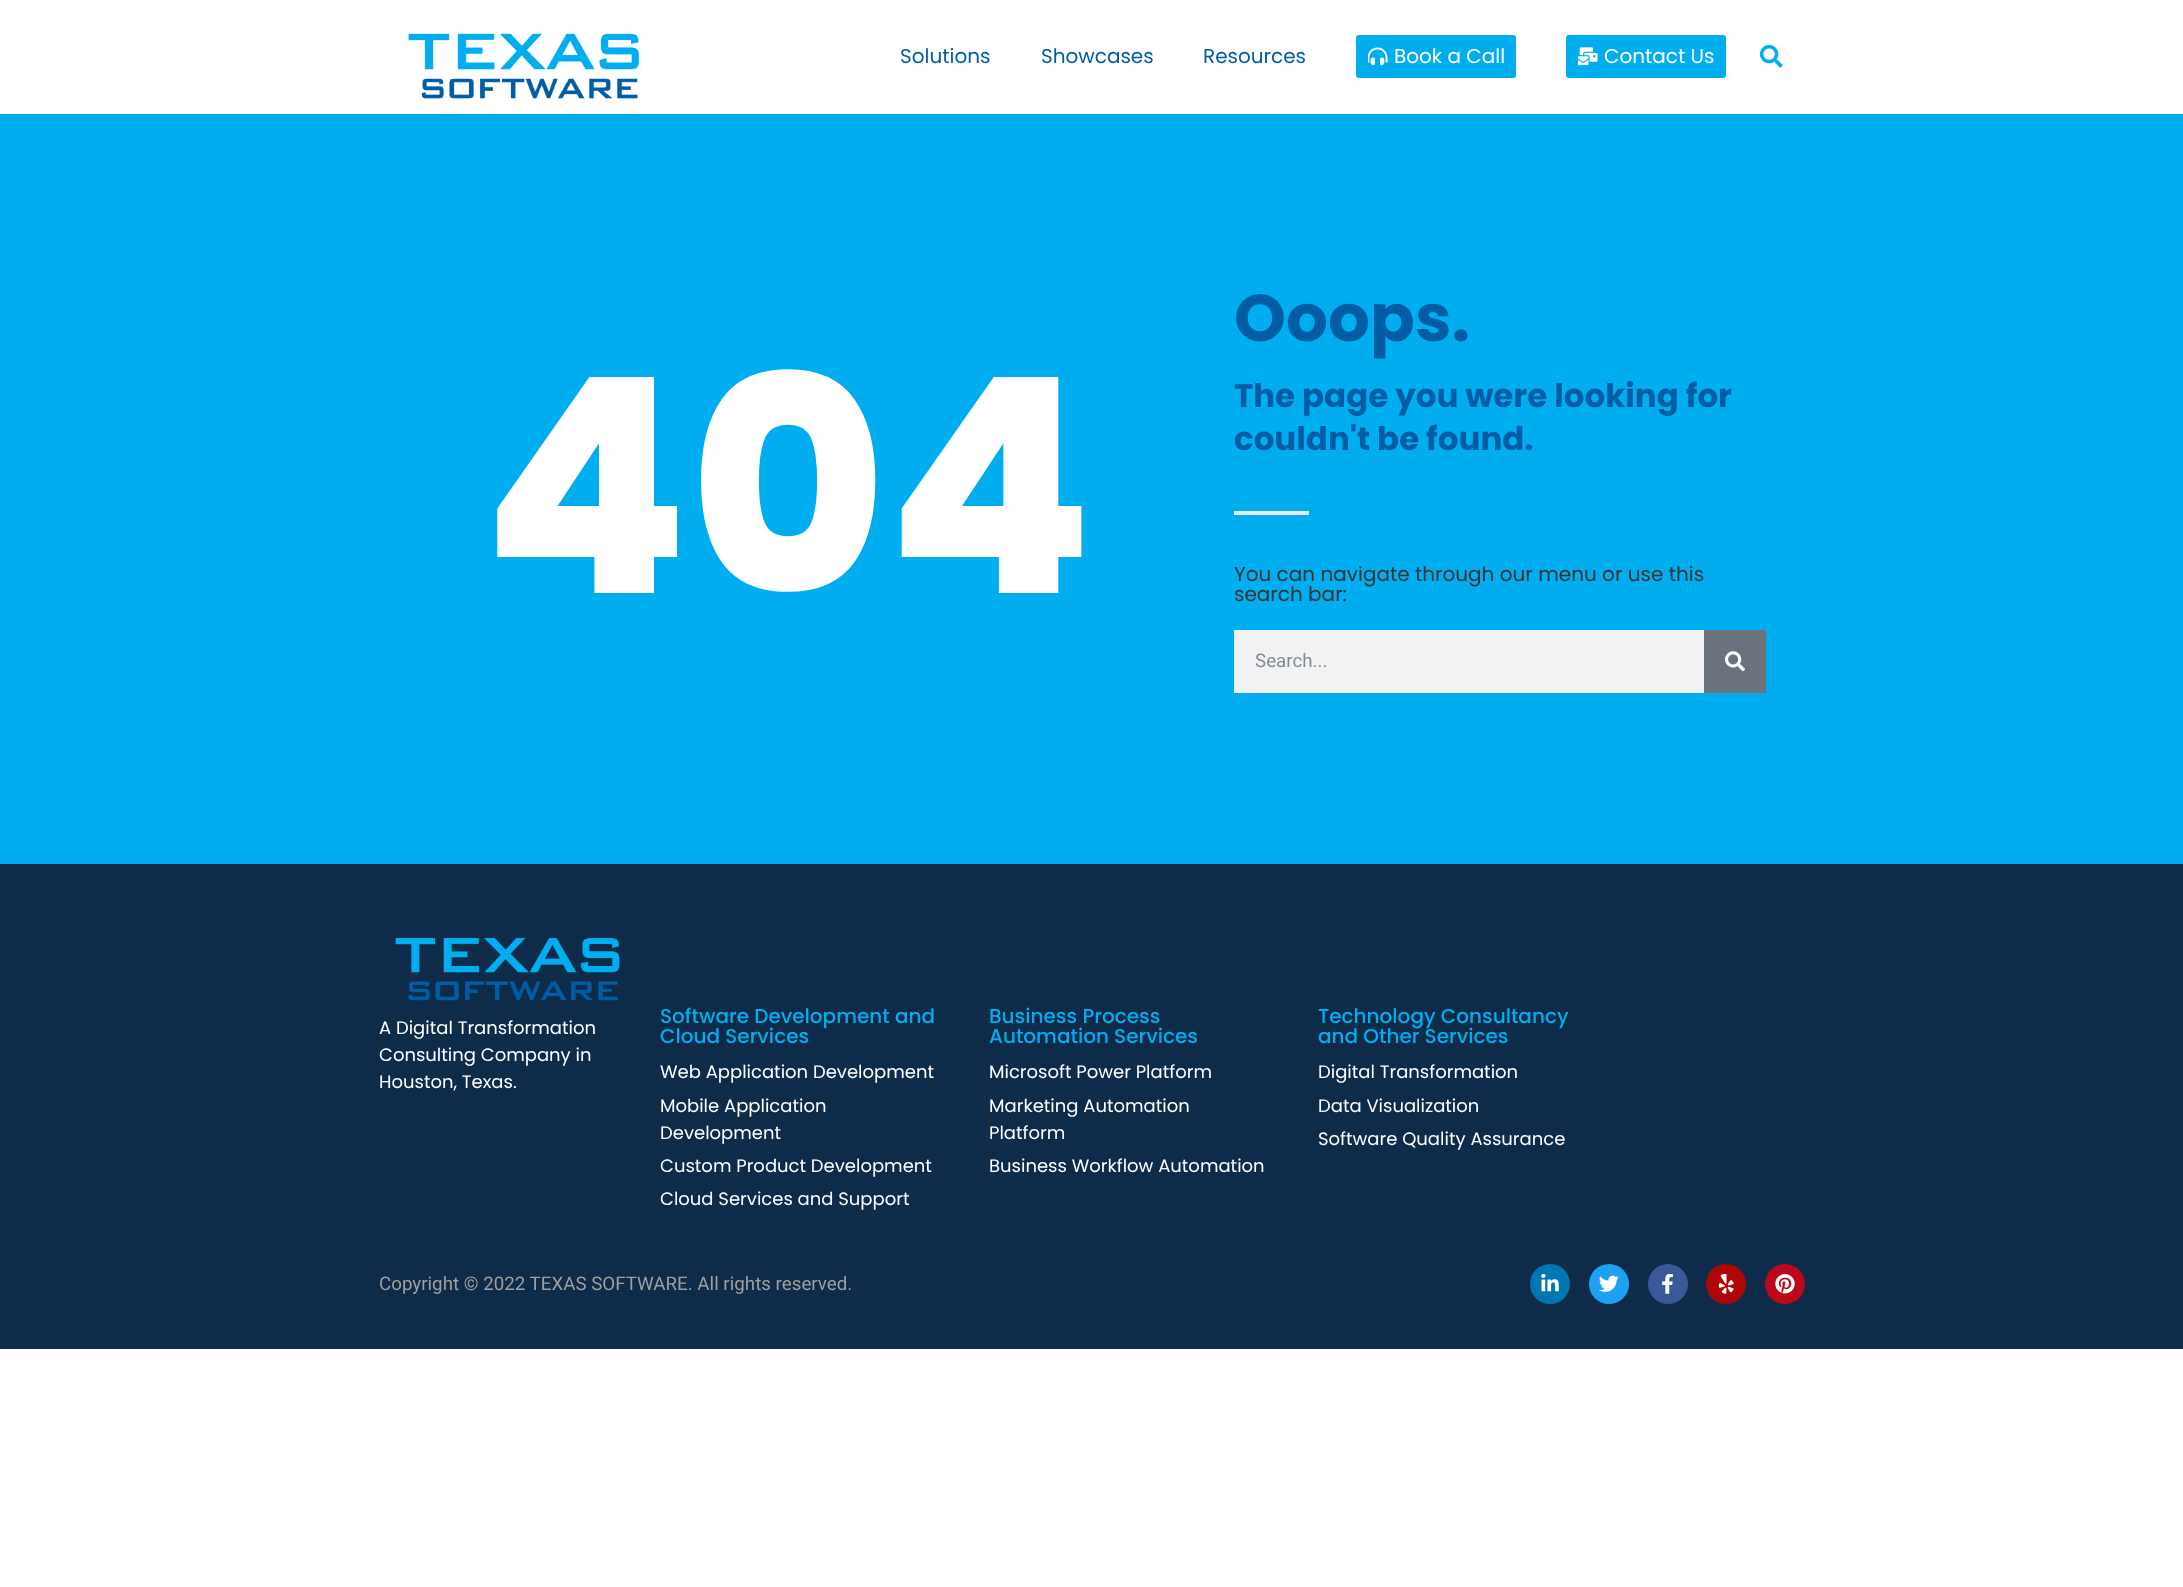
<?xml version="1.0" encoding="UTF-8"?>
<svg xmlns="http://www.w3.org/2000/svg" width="2183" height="1587">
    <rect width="100%" height="100%" fill="#FFFFFF"/>
    <image x="408" y="33" width="232" height="66" href="img_01.png"/>
    <text x="900" y="63" font-family="Poppins" font-size="20" fill="#005DA4">Solutions</text>
    <text x="1041" y="63" font-family="Poppins" font-size="20" fill="#005DA4">Showcases</text>
    <text x="1203" y="63" font-family="Poppins" font-size="20" fill="#005DA4">Resources</text>
    <rect x="1356.5" y="35.5" width="159" height="42" rx="2" fill="#00AEEF" stroke="#00AEEF"/>
    <image x="1368" y="47" width="20" height="18" href="img_02.png"/>
    <text x="1394" y="63" font-family="Poppins" font-size="20" fill="#FFFFFF">Book a Call</text>
    <rect x="1566.5" y="35.5" width="159" height="42" rx="2" fill="#00AEEF" stroke="#00AEEF"/>
    <image x="1578" y="47" width="20" height="19" href="img_03.png"/>
    <text x="1604" y="63" font-family="Poppins" font-size="20" fill="#FFFFFF">Contact Us</text>
    <image x="1760" y="45" width="23" height="23" href="img_04.png"/>
    <rect x="0" y="114" width="2183" height="750" fill="#00AEEF"/>
    <text x="482" y="593" font-family="Poppins" font-size="300" font-weight="800" fill="#FFFFFF">404</text>
    <text x="1234" y="341" font-family="Poppins" font-size="66" font-weight="700" fill="#005DA4">Ooops.</text>
    <text font-family="Poppins" font-size="32.5" font-weight="700" fill="#005DA4">
        <tspan x="1234" y="407">The page you were looking for</tspan>
        <tspan x="1234" y="450">couldn't be found.</tspan>
    </text>
    <rect x="1234" y="511" width="75" height="4" fill="#E8E8E8"/>
    <text font-family="Poppins" font-size="20" fill="#333333">
        <tspan x="1234" y="581">You can navigate through our menu or use this</tspan>
        <tspan x="1234" y="601">search bar:</tspan>
    </text>
    <rect x="1234" y="630" width="470" height="63" fill="#F1F2F3"/>
    <text x="1255" y="667" font-family="Roboto" font-size="18.75" fill="#868A8E">Search...</text>
    <rect x="1704" y="630" width="62" height="63" fill="#69727D"/>
    <image x="1725" y="651" width="20" height="20" href="img_05.png"/>
    <rect x="0" y="864" width="2183" height="485" fill="#0E2B49"/>
    <image x="395" y="937" width="225" height="64" href="img_06.png"/>
    <text font-family="Poppins" font-size="18" fill="#FFFFFF">
        <tspan x="379" y="1034">A Digital Transformation</tspan>
        <tspan x="379" y="1061">Consulting Company in</tspan>
        <tspan x="379" y="1088">Houston, Texas.</tspan>
    </text>
    <text font-family="Poppins" font-size="20" font-weight="500" fill="#00AEEF">
        <tspan x="660" y="1023">Software Development and</tspan>
        <tspan x="660" y="1043">Cloud Services</tspan>
    </text>
    <text font-family="Poppins" font-size="18" fill="#FFFFFF">
        <tspan x="660" y="1078">Web Application Development</tspan>
        <tspan x="660" y="1112">Mobile Application</tspan>
        <tspan x="660" y="1139">Development</tspan>
        <tspan x="660" y="1172">Custom Product Development</tspan>
        <tspan x="660" y="1205">Cloud Services and Support</tspan>
    </text>
    <text font-family="Poppins" font-size="20" font-weight="500" fill="#00AEEF">
        <tspan x="989" y="1023">Business Process</tspan>
        <tspan x="989" y="1043">Automation Services</tspan>
    </text>
    <text font-family="Poppins" font-size="18" fill="#FFFFFF">
        <tspan x="989" y="1078">Microsoft Power Platform</tspan>
        <tspan x="989" y="1112">Marketing Automation</tspan>
        <tspan x="989" y="1139">Platform</tspan>
        <tspan x="989" y="1172">Business Workflow Automation</tspan>
    </text>
    <text font-family="Poppins" font-size="20" font-weight="500" fill="#00AEEF">
        <tspan x="1318" y="1023">Technology Consultancy</tspan>
        <tspan x="1318" y="1043">and Other Services</tspan>
    </text>
    <text font-family="Poppins" font-size="18" fill="#FFFFFF">
        <tspan x="1318" y="1078">Digital Transformation</tspan>
        <tspan x="1318" y="1112">Data Visualization</tspan>
        <tspan x="1318" y="1145">Software Quality Assurance</tspan>
    </text>
    <text x="379" y="1290" font-family="Roboto" font-size="18.75" fill="#9F9F9F">Copyright © 2022 TEXAS SOFTWARE. All rights reserved.</text>
    <circle cx="1550" cy="1284" r="20" fill="#0077B5"/>
    <image x="1541" y="1274" width="18" height="18" href="img_07.png"/>
    <circle cx="1609" cy="1284" r="20" fill="#1DA1F2"/>
    <image x="1599" y="1275" width="20" height="17" href="img_08.png"/>
    <circle cx="1668" cy="1284" r="20" fill="#3B5998"/>
    <image x="1662" y="1274" width="11" height="20" href="img_09.png"/>
    <circle cx="1726" cy="1284" r="20" fill="#AF0606"/>
    <image x="1718" y="1274" width="16" height="20" href="img_10.png"/>
    <circle cx="1785" cy="1284" r="20" fill="#BD081C"/>
    <image x="1775" y="1274" width="20" height="20" href="img_11.png"/>
</svg>
